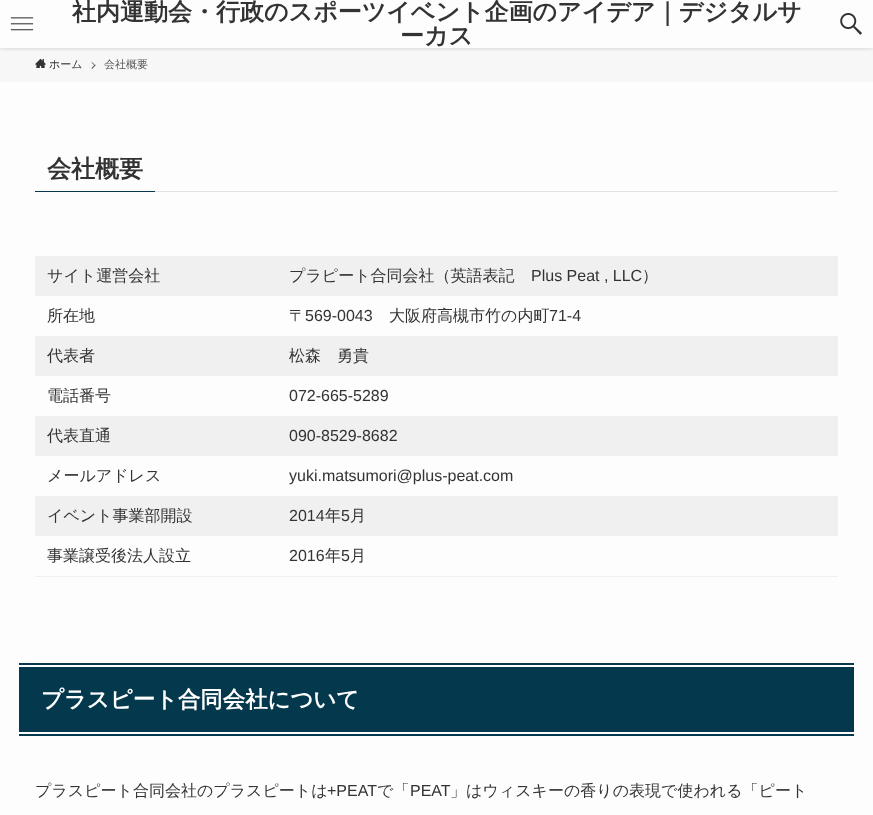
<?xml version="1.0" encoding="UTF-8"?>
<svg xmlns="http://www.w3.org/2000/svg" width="873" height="815">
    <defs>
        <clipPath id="clip1"><rect x="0" y="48" width="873" height="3"/></clipPath>
        <filter id="blur1" x="-50%" y="-200%" width="200%" height="500%"><feGaussianBlur stdDeviation="2"/></filter>
    </defs>
    <rect width="100%" height="100%" fill="#FDFDFD"/>
    <rect x="0" y="48" width="873" height="34" fill="#F7F7F7"/>
    <g clip-path="url(#clip1)">
        <rect x="0" y="1" width="873" height="48" fill="#000000" fill-opacity="0.12" filter="url(#blur1)"/>
    </g>
    <image x="10" y="17" width="24" height="14" href="img_01.png"/>
    <text x="72" y="20" font-family="WenQuanYi Zen Hei" font-size="24" font-weight="700" fill="#333333">社内運動会・行政のスポーツイベント企画のアイデア｜デジタルサ</text>
    <text x="400" y="44" font-family="WenQuanYi Zen Hei" font-size="24" font-weight="700" fill="#333333">ーカス</text>
    <image x="840" y="13" width="22" height="22" href="img_02.png"/>
    <image x="35" y="58" width="11" height="10" href="img_03.png"/>
    <text x="49" y="68" font-family="WenQuanYi Zen Hei" font-size="11" font-weight="500" fill="#333333">ホーム</text>
    <path d="M 92 62 L 95.5 65.5 L 95 66 L 91.5 62.5 Z" fill="#5A5A5A"/>
    <path d="M 95 64.5 L 95.5 65.5 L 92 69 L 91.5 68 Z" fill="#5A5A5A"/>
    <text x="104" y="68" font-family="WenQuanYi Zen Hei" font-size="11" font-weight="500" fill="#5A5A5A">会社概要</text>
    <rect x="155" y="191" width="683" height="1" fill="#E2E2E2"/>
    <rect x="35" y="191" width="120" height="1" fill="#04384C"/>
    <text x="47" y="177" font-family="WenQuanYi Zen Hei" font-size="24" font-weight="700" fill="#333333">会社概要</text>
    <rect x="35" y="576" width="803" height="1" fill="#F0F0F0"/>
    <rect x="35" y="256" width="803" height="40" fill="#F0F0F0"/>
    <text x="47" y="281" font-family="WenQuanYi Zen Hei" font-size="16" font-weight="500" fill="#333333">サイト運営会社</text>
    <text x="289" y="281" font-family="WenQuanYi Zen Hei" font-size="16" font-weight="500" fill="#333333">プラピート合同会社（英語表記</text>
    <text x="531" y="281" font-family="Liberation Sans" font-size="16" fill="#333333">Plus Peat , LLC</text>
    <text x="642" y="281" font-family="WenQuanYi Zen Hei" font-size="16" font-weight="500" fill="#333333">）</text>
    <text x="47" y="321" font-family="WenQuanYi Zen Hei" font-size="16" font-weight="500" fill="#333333">所在地</text>
    <text x="289" y="321" font-family="WenQuanYi Zen Hei" font-size="16" font-weight="500" fill="#333333">〒</text>
    <text x="305" y="321" font-family="Liberation Sans" font-size="16" fill="#333333">569-0043</text>
    <text x="389" y="321" font-family="WenQuanYi Zen Hei" font-size="16" font-weight="500" fill="#333333">大阪府高槻市竹の内町</text>
    <text x="549" y="321" font-family="Liberation Sans" font-size="16" fill="#333333">71-4</text>
    <rect x="35" y="336" width="803" height="40" fill="#F0F0F0"/>
    <text x="47" y="361" font-family="WenQuanYi Zen Hei" font-size="16" font-weight="500" fill="#333333">代表者</text>
    <text x="289" y="361" font-family="WenQuanYi Zen Hei" font-size="16" font-weight="500" fill="#333333">松森　勇貴</text>
    <text x="47" y="401" font-family="WenQuanYi Zen Hei" font-size="16" font-weight="500" fill="#333333">電話番号</text>
    <text x="289" y="401" font-family="Liberation Sans" font-size="16" fill="#333333">072-665-5289</text>
    <rect x="35" y="416" width="803" height="40" fill="#F0F0F0"/>
    <text x="47" y="441" font-family="WenQuanYi Zen Hei" font-size="16" font-weight="500" fill="#333333">代表直通</text>
    <text x="289" y="441" font-family="Liberation Sans" font-size="16" fill="#333333">090-8529-8682</text>
    <text x="47" y="481" font-family="WenQuanYi Zen Hei" font-size="16" font-weight="500" fill="#333333">メールアドレス</text>
    <text x="289" y="481" font-family="Liberation Sans" font-size="16" fill="#333333">yuki.matsumori@plus-peat.com</text>
    <rect x="35" y="496" width="803" height="40" fill="#F0F0F0"/>
    <text x="47" y="521" font-family="WenQuanYi Zen Hei" font-size="16" font-weight="500" fill="#333333">イベント事業部開設</text>
    <text x="289" y="521" font-family="Liberation Sans" font-size="16" fill="#333333">2014</text>
    <text x="325" y="521" font-family="WenQuanYi Zen Hei" font-size="16" font-weight="500" fill="#333333">年</text>
    <text x="341" y="521" font-family="Liberation Sans" font-size="16" fill="#333333">5</text>
    <text x="350" y="521" font-family="WenQuanYi Zen Hei" font-size="16" font-weight="500" fill="#333333">月</text>
    <text x="47" y="561" font-family="WenQuanYi Zen Hei" font-size="16" font-weight="500" fill="#333333">事業譲受後法人設立</text>
    <text x="289" y="561" font-family="Liberation Sans" font-size="16" fill="#333333">2016</text>
    <text x="325" y="561" font-family="WenQuanYi Zen Hei" font-size="16" font-weight="500" fill="#333333">年</text>
    <text x="341" y="561" font-family="Liberation Sans" font-size="16" fill="#333333">5</text>
    <text x="350" y="561" font-family="WenQuanYi Zen Hei" font-size="16" font-weight="500" fill="#333333">月</text>
    <rect x="19" y="667" width="835" height="65" fill="#04384C"/>
    <rect x="19" y="663" width="835" height="2" fill="#04384C"/>
    <rect x="19" y="734" width="835" height="2" fill="#04384C"/>
    <text x="41" y="707" font-family="WenQuanYi Zen Hei" font-size="22.4" font-weight="700" fill="#FFFFFF">プラスピート合同会社について</text>
    <text x="35" y="796" font-family="WenQuanYi Zen Hei" font-size="16" font-weight="500" fill="#333333">プラスピート合同会社のプラスピートは</text>
    <text x="327" y="796" font-family="Liberation Sans" font-size="16" fill="#333333">+PEAT</text>
    <text x="377" y="796" font-family="WenQuanYi Zen Hei" font-size="16" font-weight="500" fill="#333333">で「</text>
    <text x="410" y="796" font-family="Liberation Sans" font-size="16" fill="#333333">PEAT</text>
    <text x="450" y="796" font-family="WenQuanYi Zen Hei" font-size="16" font-weight="500" fill="#333333">」はウィスキーの香りの表現で使われる「ピート</text>
</svg>
